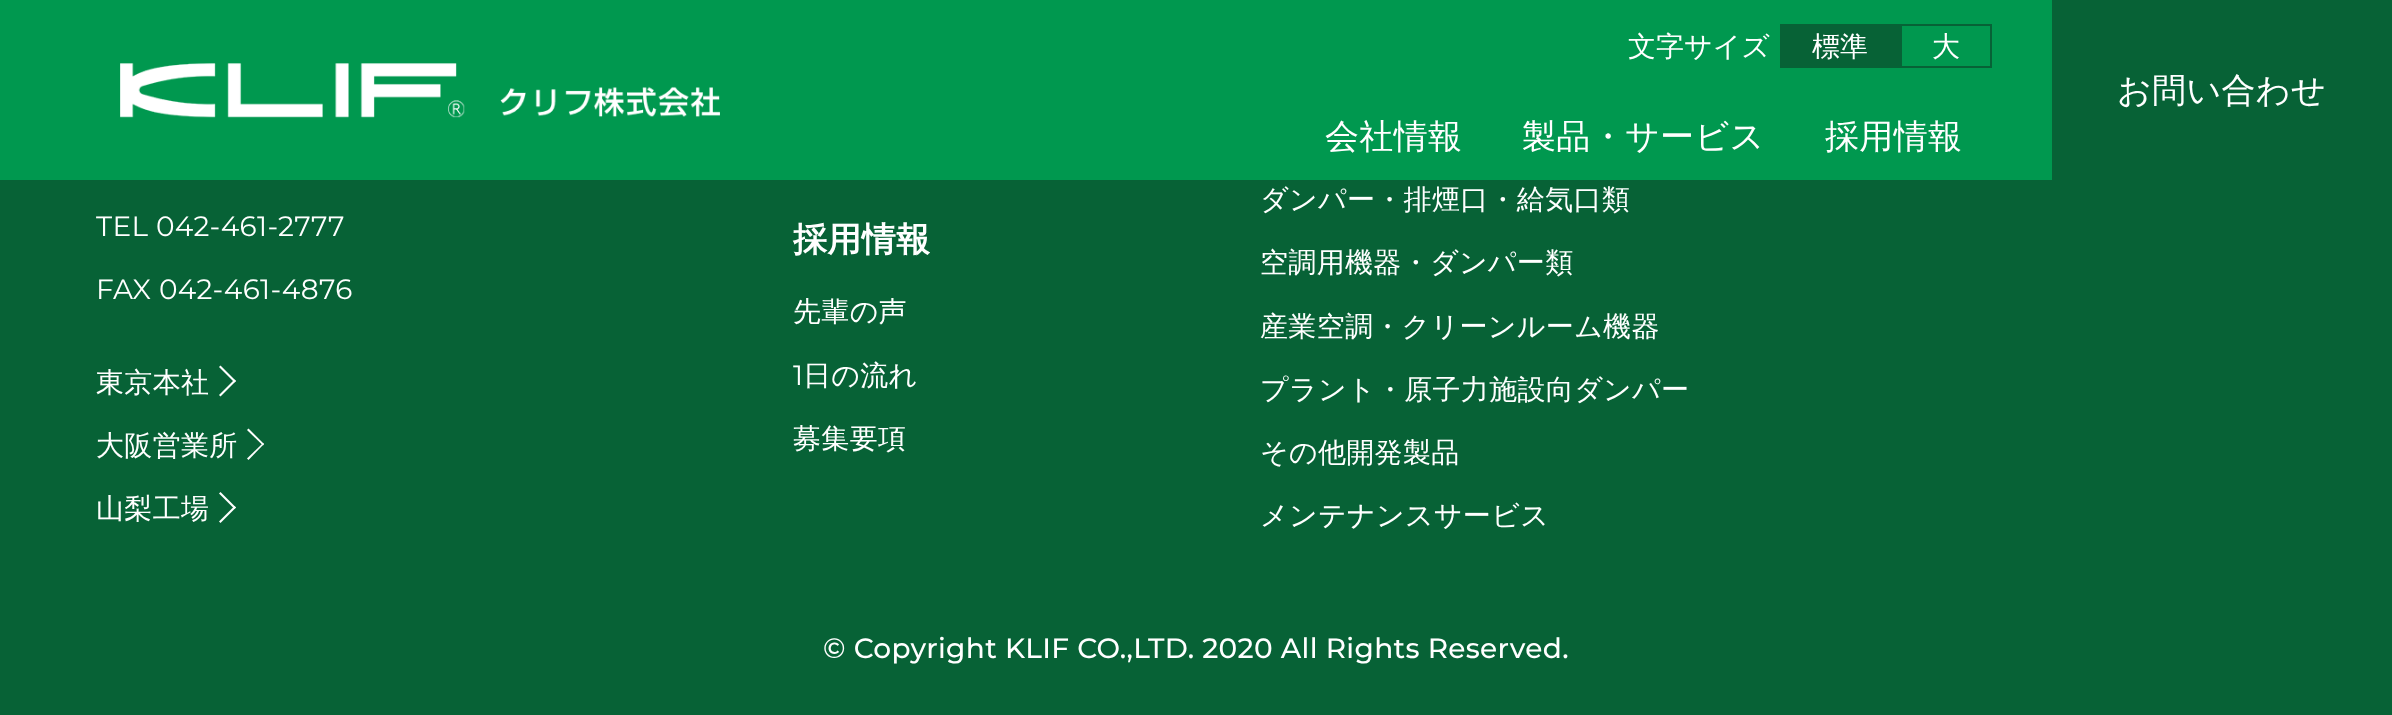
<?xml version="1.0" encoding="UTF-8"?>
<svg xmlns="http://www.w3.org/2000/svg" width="2392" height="715">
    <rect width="100%" height="100%" fill="#076236"/>
    <rect x="0" y="0" width="2052" height="180" fill="#00984F"/>
    <text x="1628" y="56" font-family="WenQuanYi Zen Hei" font-size="28" font-weight="500" fill="#FFFFFF">文字サイズ</text>
    <rect x="1780" y="24" width="120" height="44" fill="#076236"/>
    <text x="1812" y="56" font-family="WenQuanYi Zen Hei" font-size="28" font-weight="500" fill="#FFFFFF">標準</text>
    <rect x="1901" y="25" width="90" height="42" fill="none" stroke="#076236" stroke-width="2"/>
    <text x="1932" y="56" font-family="WenQuanYi Zen Hei" font-size="28" font-weight="500" fill="#FFFFFF">大</text>
    <image x="120" y="63" width="600" height="55" href="img_01.png"/>
    <text x="2117" y="102" font-family="WenQuanYi Zen Hei" font-size="34" font-weight="500" letter-spacing="0.32" fill="#FFFFFF">お問い合わせ</text>
    <text x="1325" y="148" font-family="WenQuanYi Zen Hei" font-size="34" font-weight="500" letter-spacing="0.32" fill="#FFFFFF">会社情報</text>
    <text x="1522" y="148" font-family="WenQuanYi Zen Hei" font-size="34" font-weight="500" letter-spacing="0.32" fill="#FFFFFF">製品・サービス</text>
    <text x="1825" y="148" font-family="WenQuanYi Zen Hei" font-size="34" font-weight="500" letter-spacing="0.32" fill="#FFFFFF">採用情報</text>
    <text x="96" y="236" font-family="Montserrat" font-size="28" letter-spacing="0.32" fill="#FFFFFF">TEL 042-461-2777</text>
    <text x="96" y="299" font-family="Montserrat" font-size="28" letter-spacing="0.32" fill="#FFFFFF">FAX 042-461-4876</text>
    <text x="96" y="392" font-family="WenQuanYi Zen Hei" font-size="28" font-weight="500" letter-spacing="0.32" fill="#FFFFFF">東京本社</text>
    <path d="M 220.5 365.5 L 236 381 L 234.5 382.5 L 219 367 Z" fill="#FFFFFF"/>
    <path d="M 234.5 379.5 L 236 381 L 220.5 396.5 L 219 395 Z" fill="#FFFFFF"/>
    <text x="96" y="455" font-family="WenQuanYi Zen Hei" font-size="28" font-weight="500" letter-spacing="0.32" fill="#FFFFFF">大阪営業所</text>
    <path d="M 248.5 428.5 L 264 444 L 263 445.5 L 247 430 Z" fill="#FFFFFF"/>
    <path d="M 263 443 L 264 444 L 248.5 460 L 247 458.5 Z" fill="#FFFFFF"/>
    <text x="96" y="518" font-family="WenQuanYi Zen Hei" font-size="28" font-weight="500" letter-spacing="0.32" fill="#FFFFFF">山梨工場</text>
    <path d="M 220.5 492 L 236 507.5 L 234.5 509 L 219 493.5 Z" fill="#FFFFFF"/>
    <path d="M 234.5 506 L 236 507.5 L 220.5 523 L 219 521.5 Z" fill="#FFFFFF"/>
    <text x="793" y="251" font-family="WenQuanYi Zen Hei" font-size="34" font-weight="700" letter-spacing="0.32" fill="#FFFFFF">採用情報</text>
    <text x="793" y="321" font-family="WenQuanYi Zen Hei" font-size="28" font-weight="500" letter-spacing="0.32" fill="#FFFFFF">先輩の声</text>
    <text x="793" y="385" font-family="Montserrat" font-size="28" letter-spacing="0.32" fill="#FFFFFF">1</text>
    <text x="803" y="385" font-family="WenQuanYi Zen Hei" font-size="28" font-weight="500" letter-spacing="0.32" fill="#FFFFFF">日の流れ</text>
    <text x="793" y="448" font-family="WenQuanYi Zen Hei" font-size="28" font-weight="500" letter-spacing="0.32" fill="#FFFFFF">募集要項</text>
    <text x="1260" y="209" font-family="WenQuanYi Zen Hei" font-size="28" font-weight="500" letter-spacing="0.32" fill="#FFFFFF">ダンパー・排煙口・給気口類</text>
    <text x="1260" y="272" font-family="WenQuanYi Zen Hei" font-size="28" font-weight="500" letter-spacing="0.32" fill="#FFFFFF">空調用機器・ダンパー類</text>
    <text x="1260" y="336" font-family="WenQuanYi Zen Hei" font-size="28" font-weight="500" letter-spacing="0.32" fill="#FFFFFF">産業空調・クリーンルーム機器</text>
    <text x="1260" y="399" font-family="WenQuanYi Zen Hei" font-size="28" font-weight="500" letter-spacing="0.32" fill="#FFFFFF">プラント・原子力施設向ダンパー</text>
    <text x="1260" y="462" font-family="WenQuanYi Zen Hei" font-size="28" font-weight="500" letter-spacing="0.32" fill="#FFFFFF">その他開発製品</text>
    <text x="1260" y="525" font-family="WenQuanYi Zen Hei" font-size="28" font-weight="500" letter-spacing="0.32" fill="#FFFFFF">メンテナンスサービス</text>
    <text x="823" y="658" font-family="Montserrat" font-size="28" font-weight="500" letter-spacing="0.32" fill="#FFFFFF">© Copyright KLIF CO.,LTD. 2020 All Rights Reserved.</text>
</svg>
